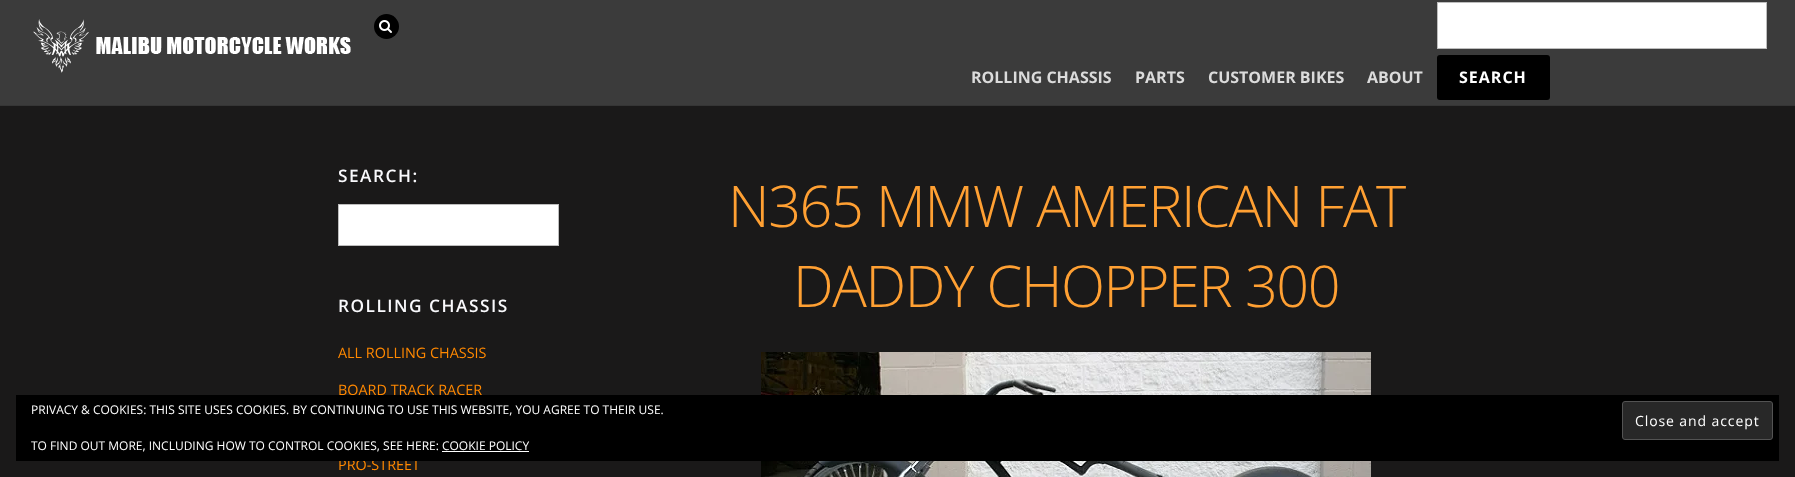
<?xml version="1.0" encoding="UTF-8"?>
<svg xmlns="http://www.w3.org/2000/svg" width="1795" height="477">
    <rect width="100%" height="100%" fill="#1A1919"/>
    <rect x="0" y="0" width="1795" height="105" fill="#3B3B3B"/>
    <rect x="0" y="105" width="1795" height="1" fill="#353535"/>
    <image x="33" y="19" width="318" height="54" href="img_01.png"/>
    <circle cx="386.5" cy="26.5" r="12.5" fill="#000000"/>
    <image x="379" y="20" width="13" height="13" href="img_02.png"/>
    <text x="971" y="83" font-family="Open Sans" font-size="16" font-weight="700" fill="#DBDBDB">ROLLING CHASSIS</text>
    <text x="1135" y="83" font-family="Open Sans" font-size="16" font-weight="700" fill="#DBDBDB">PARTS</text>
    <text x="1208" y="83" font-family="Open Sans" font-size="16" font-weight="700" fill="#DBDBDB">CUSTOMER BIKES</text>
    <text x="1367" y="83" font-family="Open Sans" font-size="16" font-weight="700" fill="#DBDBDB">ABOUT</text>
    <rect x="1437.5" y="2.5" width="329" height="46" fill="#FFFFFF" stroke="#BDBDBD"/>
    <rect x="1437" y="55" width="113" height="45" rx="3" fill="#000000"/>
    <text x="1459" y="83" font-family="Open Sans" font-size="16" font-weight="700" letter-spacing="1" fill="#FFFFFF">SEARCH</text>
    <text x="338" y="182" font-family="Open Sans" font-size="17.25" font-weight="600" letter-spacing="1.5" fill="#F9F9FC">SEARCH:</text>
    <rect x="338.5" y="204.5" width="220" height="41" fill="#FFFFFF" stroke="#BDBDBD"/>
    <text x="338" y="312" font-family="Open Sans" font-size="17.25" font-weight="600" letter-spacing="1.5" fill="#F9F9FC">ROLLING CHASSIS</text>
    <text x="338" y="358" font-family="Open Sans" font-size="14.4" fill="#FF8800">ALL ROLLING CHASSIS</text>
    <text x="338" y="395" font-family="Open Sans" font-size="14.4" fill="#FF8800">BOARD TRACK RACER</text>
    <text x="338" y="470" font-family="Open Sans" font-size="14.4" fill="#FF8800">PRO-STREET</text>
    <text x="728" y="227" font-family="Open Sans" font-size="57.6" font-weight="300" letter-spacing="-1.4" fill="#FFA033">N365 MMW AMERICAN FAT</text>
    <text x="793" y="307" font-family="Open Sans" font-size="57.6" font-weight="300" letter-spacing="-1.4" fill="#FFA033">DADDY CHOPPER 300</text>
    <image x="761" y="352" width="610" height="125" href="img_03.png"/>
    <rect x="16" y="395" width="1763" height="66" fill="#000000"/>
    <text x="31" y="414" font-family="Open Sans" font-size="12" fill="#FFFFFF">PRIVACY &amp; COOKIES: THIS SITE USES COOKIES. BY CONTINUING TO USE THIS WEBSITE, YOU AGREE TO THEIR USE.</text>
    <rect x="1622.5" y="401.5" width="150" height="38" rx="2.5" fill="#282828" stroke="#535353"/>
    <text x="1635" y="426" font-family="Open Sans" font-size="14" letter-spacing="0.9" fill="#FFFFFF">Close and accept</text>
    <text x="31" y="450" font-family="Open Sans" font-size="12" fill="#FFFFFF">TO FIND OUT MORE, INCLUDING HOW TO CONTROL COOKIES, SEE HERE: COOKIE POLICY</text>
    <rect x="442" y="451" width="87" height="1" fill="#FFFFFF"/>
</svg>
